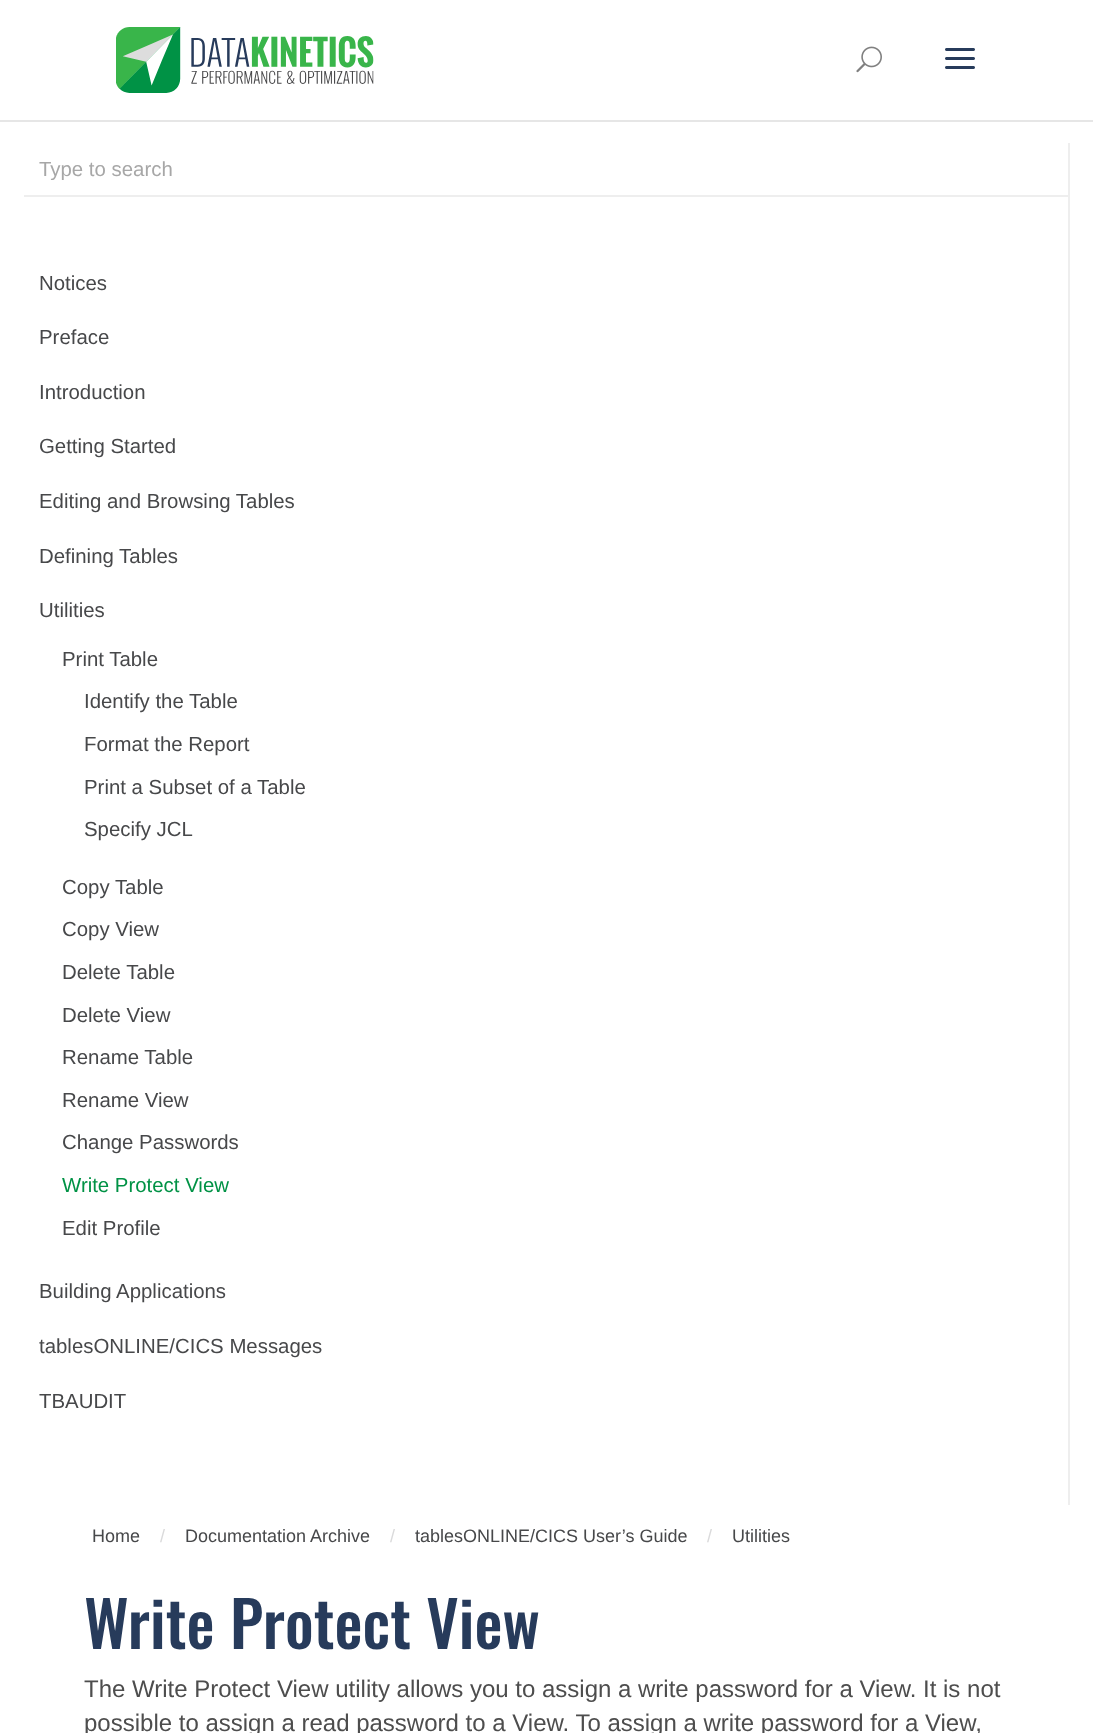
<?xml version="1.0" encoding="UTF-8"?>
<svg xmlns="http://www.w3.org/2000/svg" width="1093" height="1733">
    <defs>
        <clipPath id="clip1"><rect x="39" y="158" width="1008" height="22"/></clipPath>
    </defs>
    <rect width="100%" height="100%" fill="#FFFFFF"/>
    <path d="M 0 120 V 122 H 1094 V 2 V 120 Z" fill="#E6E6E6"/>
    <image x="116" y="27" width="258" height="66" href="img_01.png"/>
    <image x="856" y="46" width="26" height="27" href="img_02.png"/>
    <image x="945" y="48" width="30" height="21" href="img_03.png"/>
    <rect x="1068" y="143" width="2" height="1362" fill="#EEEEEE"/>
    <rect x="24" y="195" width="1044" height="2" fill="#EEEEEE"/>
    <g clip-path="url(#clip1)">
        <text x="39" y="176" font-family="Liberation Sans" font-size="20.4" fill="#A7A7A7">Type to search</text>
    </g>
    <text x="39" y="290" font-family="Liberation Sans" font-size="20.4" fill="#47484A">Notices</text>
    <text x="39" y="344" font-family="Liberation Sans" font-size="20.4" fill="#47484A">Preface</text>
    <text x="39" y="399" font-family="Liberation Sans" font-size="20.4" fill="#47484A">Introduction</text>
    <text x="39" y="453" font-family="Liberation Sans" font-size="20.4" fill="#47484A">Getting Started</text>
    <text x="39" y="508" font-family="Liberation Sans" font-size="20.4" fill="#47484A">Editing and Browsing Tables</text>
    <text x="39" y="563" font-family="Liberation Sans" font-size="20.4" fill="#47484A">Defining Tables</text>
    <text x="39" y="617" font-family="Liberation Sans" font-size="20.4" fill="#47484A">Utilities</text>
    <text x="62" y="666" font-family="Liberation Sans" font-size="20.4" fill="#47484A">Print Table</text>
    <text x="84" y="708" font-family="Liberation Sans" font-size="20.4" fill="#47484A">Identify the Table</text>
    <text x="84" y="751" font-family="Liberation Sans" font-size="20.4" fill="#47484A">Format the Report</text>
    <text x="84" y="794" font-family="Liberation Sans" font-size="20.4" fill="#47484A">Print a Subset of a Table</text>
    <text x="84" y="836" font-family="Liberation Sans" font-size="20.4" fill="#47484A">Specify JCL</text>
    <text x="62" y="894" font-family="Liberation Sans" font-size="20.4" fill="#47484A">Copy Table</text>
    <text x="62" y="936" font-family="Liberation Sans" font-size="20.4" fill="#47484A">Copy View</text>
    <text x="62" y="979" font-family="Liberation Sans" font-size="20.4" fill="#47484A">Delete Table</text>
    <text x="62" y="1022" font-family="Liberation Sans" font-size="20.4" fill="#47484A">Delete View</text>
    <text x="62" y="1064" font-family="Liberation Sans" font-size="20.4" fill="#47484A">Rename Table</text>
    <text x="62" y="1107" font-family="Liberation Sans" font-size="20.4" fill="#47484A">Rename View</text>
    <text x="62" y="1149" font-family="Liberation Sans" font-size="20.4" fill="#47484A">Change Passwords</text>
    <text x="62" y="1192" font-family="Liberation Sans" font-size="20.4" fill="#009245">Write Protect View</text>
    <text x="62" y="1235" font-family="Liberation Sans" font-size="20.4" fill="#47484A">Edit Profile</text>
    <text x="39" y="1298" font-family="Liberation Sans" font-size="20.4" fill="#47484A">Building Applications</text>
    <text x="39" y="1353" font-family="Liberation Sans" font-size="20.4" fill="#47484A">tablesONLINE/CICS Messages</text>
    <text x="39" y="1408" font-family="Liberation Sans" font-size="20.4" fill="#47484A">TBAUDIT</text>
    <text x="92" y="1542" font-family="Liberation Sans" font-size="18" fill="#47484A">Home</text>
    <text x="160" y="1542" font-family="Liberation Sans" font-size="18" fill="#DADADB">/</text>
    <text x="185" y="1542" font-family="Liberation Sans" font-size="18" fill="#47484A">Documentation Archive</text>
    <text x="390" y="1542" font-family="Liberation Sans" font-size="18" fill="#DADADB">/</text>
    <text x="415" y="1542" font-family="Liberation Sans" font-size="18" fill="#47484A">tablesONLINE/CICS User’s Guide</text>
    <text x="707" y="1542" font-family="Liberation Sans" font-size="18" fill="#DADADB">/</text>
    <text x="732" y="1542" font-family="Liberation Sans" font-size="18" fill="#47484A">Utilities</text>
    <text x="84" y="1649" font-family="Oswald" font-size="63" font-weight="500" fill="#273B5B">Write Protect View</text>
    <text font-family="Liberation Sans" font-size="24" fill="#4D4D4D">
        <tspan x="84" y="1697">The Write Protect View utility allows you to assign a write password for a View. It is not</tspan>
        <tspan x="84" y="1731">possible to assign a read password to a View. To assign a write password for a View,</tspan>
    </text>
</svg>
